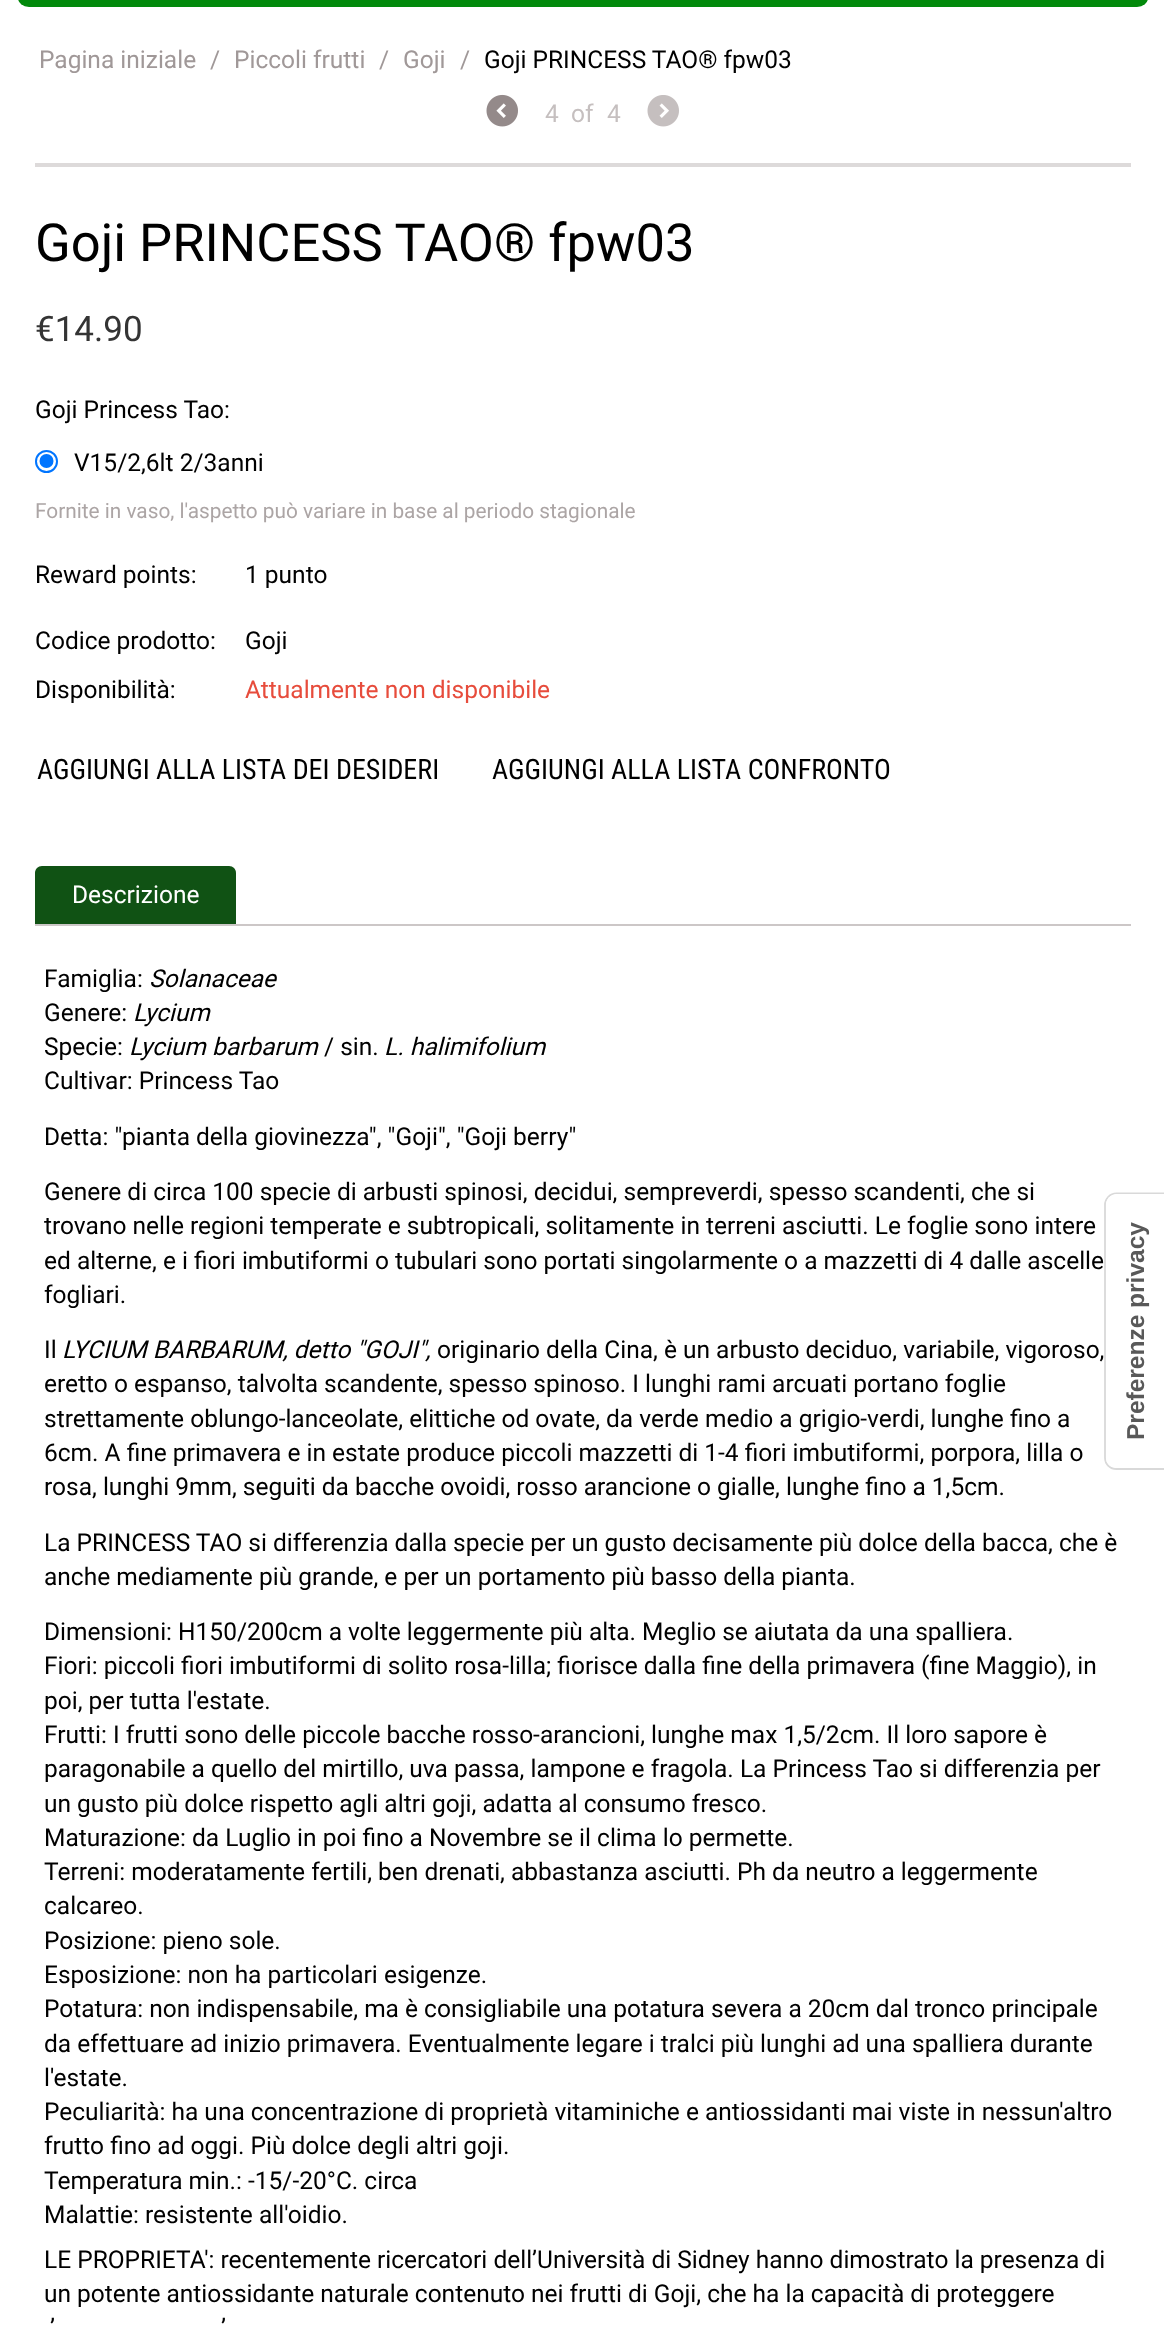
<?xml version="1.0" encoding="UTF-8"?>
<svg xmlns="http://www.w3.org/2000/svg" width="1164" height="2329">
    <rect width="100%" height="100%" fill="#FFFFFF"/>
    <rect x="18" y="-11" width="1130" height="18" rx="11" fill="#02890B"/>
    <text x="39" y="68" font-family="Roboto" font-size="24.5" fill="#A09898">Pagina iniziale</text>
    <text x="210" y="68" font-family="Roboto" font-size="24.5" fill="#A09898">/</text>
    <text x="234" y="68" font-family="Roboto" font-size="24.5" fill="#A09898">Piccoli frutti</text>
    <text x="379" y="68" font-family="Roboto" font-size="24.5" fill="#A09898">/</text>
    <text x="403" y="68" font-family="Roboto" font-size="24.5" fill="#A09898">Goji</text>
    <text x="460" y="68" font-family="Roboto" font-size="24.5" fill="#A09898">/</text>
    <text x="484" y="68" font-family="Roboto" font-size="24.5" fill="#000000">Goji PRINCESS TAO® fpw03</text>
    <image x="486" y="94" width="32" height="33" href="img_01.png"/>
    <text x="545" y="122" font-family="Roboto" font-size="24.5" fill="#C5BFBF">4</text>
    <text x="571" y="122" font-family="Roboto" font-size="24.5" fill="#C5BFBF">of</text>
    <text x="607" y="122" font-family="Roboto" font-size="24.5" fill="#C5BFBF">4</text>
    <image x="647" y="95" width="32" height="32" href="img_02.png"/>
    <rect x="35" y="163" width="1096" height="4" fill="#DDDADA"/>
    <text x="35" y="261" font-family="Roboto" font-size="52.5" fill="#000000">Goji PRINCESS TAO® fpw03</text>
    <text x="35" y="341" font-family="Roboto" font-size="35" fill="#343434">€14.90</text>
    <text x="35" y="418" font-family="Roboto" font-size="24.5" fill="#000000">Goji Princess Tao:</text>
    <circle cx="46.5" cy="461.5" r="10.5" fill="none" stroke="#0075FF" stroke-width="2"/>
    <circle cx="46.5" cy="461" r="7" fill="#0075FF"/>
    <text x="74" y="471" font-family="Roboto" font-size="24.5" fill="#000000">V15/2,6lt 2/3anni</text>
    <text x="35" y="518" font-family="Roboto" font-size="20.8" fill="#ACA5A5">Fornite in vaso, l'aspetto può variare in base al periodo stagionale</text>
    <text x="35" y="583" font-family="Roboto" font-size="24.5" fill="#000000">Reward points:</text>
    <text x="245" y="583" font-family="Roboto" font-size="24.5" fill="#000000">1 punto</text>
    <text x="35" y="649" font-family="Roboto" font-size="24.5" fill="#000000">Codice prodotto:</text>
    <text x="245" y="649" font-family="Roboto" font-size="24.5" fill="#000000">Goji</text>
    <text x="35" y="698" font-family="Roboto" font-size="24.5" fill="#000000">Disponibilità:</text>
    <text x="245" y="698" font-family="Roboto" font-size="24.5" fill="#E74C3C">Attualmente non disponibile</text>
    <text x="37" y="779" font-family="Roboto Condensed" font-size="28" fill="#000000">AGGIUNGI ALLA LISTA DEI DESIDERI</text>
    <text x="492" y="779" font-family="Roboto Condensed" font-size="28" fill="#000000">AGGIUNGI ALLA LISTA CONFRONTO</text>
    <rect x="35" y="924" width="1096" height="2" fill="#CCC7C7"/>
    <path d="M 42 866 H 229 C 233 866 236 869 236 873 V 924 H 35 V 873 C 35 869 38 866 42 866 Z" fill="#105214"/>
    <text x="72" y="903" font-family="Roboto" font-size="24.5" fill="#FFFFFF">Descrizione</text>
    <text x="44" y="987" font-family="Roboto" font-size="24.5" fill="#000000">Famiglia:</text>
    <text x="149" y="987" font-family="Roboto" font-size="24.5" font-style="italic" fill="#000000">Solanaceae</text>
    <text x="44" y="1021" font-family="Roboto" font-size="24.5" fill="#000000">Genere:</text>
    <text x="133" y="1021" font-family="Roboto" font-size="24.5" font-style="italic" fill="#000000">Lycium</text>
    <text x="44" y="1055" font-family="Roboto" font-size="24.5" fill="#000000">Specie:</text>
    <text x="129" y="1055" font-family="Roboto" font-size="24.5" font-style="italic" fill="#000000">Lycium barbarum</text>
    <text x="324" y="1055" font-family="Roboto" font-size="24.5" fill="#000000">/ sin.</text>
    <text x="384" y="1055" font-family="Roboto" font-size="24.5" font-style="italic" fill="#000000">L. halimifolium</text>
    <text x="44" y="1089" font-family="Roboto" font-size="24.5" fill="#000000">Cultivar: Princess Tao</text>
    <text x="44" y="1145" font-family="Roboto" font-size="24.5" fill="#000000">Detta: "pianta della giovinezza", "Goji", "Goji berry"</text>
    <text font-family="Roboto" font-size="24.5" fill="#000000">
        <tspan x="44" y="1200">Genere di circa 100 specie di arbusti spinosi, decidui, sempreverdi, spesso scandenti, che si</tspan>
        <tspan x="44" y="1234">trovano nelle regioni temperate e subtropicali, solitamente in terreni asciutti. Le foglie sono intere</tspan>
        <tspan x="44" y="1269">ed alterne, e i fiori imbutiformi o tubulari sono portati singolarmente o a mazzetti di 4 dalle ascelle</tspan>
        <tspan x="44" y="1303">fogliari.</tspan>
    </text>
    <text x="44" y="1358" font-family="Roboto" font-size="24.5" fill="#000000">Il</text>
    <text x="62" y="1358" font-family="Roboto" font-size="24.5" font-style="italic" fill="#000000">LYCIUM BARBARUM, detto "GOJI",</text>
    <text x="437" y="1358" font-family="Roboto" font-size="24.5" fill="#000000">originario della Cina, è un arbusto deciduo, variabile, vigoroso,</text>
    <text font-family="Roboto" font-size="24.5" fill="#000000">
        <tspan x="44" y="1392">eretto o espanso, talvolta scandente, spesso spinoso. I lunghi rami arcuati portano foglie</tspan>
        <tspan x="44" y="1427">strettamente oblungo-lanceolate, elittiche od ovate, da verde medio a grigio-verdi, lunghe fino a</tspan>
        <tspan x="44" y="1461">6cm. A fine primavera e in estate produce piccoli mazzetti di 1-4 fiori imbutiformi, porpora, lilla o</tspan>
        <tspan x="44" y="1495">rosa, lunghi 9mm, seguiti da bacche ovoidi, rosso arancione o gialle, lunghe fino a 1,5cm.</tspan>
    </text>
    <text font-family="Roboto" font-size="24.5" fill="#000000">
        <tspan x="44" y="1551">La PRINCESS TAO si differenzia dalla specie per un gusto decisamente più dolce della bacca, che è</tspan>
        <tspan x="44" y="1585">anche mediamente più grande, e per un portamento più basso della pianta.</tspan>
    </text>
    <text font-family="Roboto" font-size="24.5" fill="#000000">
        <tspan x="44" y="1640">Dimensioni: H150/200cm a volte leggermente più alta. Meglio se aiutata da una spalliera.</tspan>
        <tspan x="44" y="1674">Fiori: piccoli fiori imbutiformi di solito rosa-lilla; fiorisce dalla fine della primavera (fine Maggio), in</tspan>
        <tspan x="44" y="1709">poi, per tutta l'estate.</tspan>
        <tspan x="44" y="1743">Frutti: I frutti sono delle piccole bacche rosso-arancioni, lunghe max 1,5/2cm. Il loro sapore è</tspan>
        <tspan x="44" y="1777">paragonabile a quello del mirtillo, uva passa, lampone e fragola. La Princess Tao si differenzia per</tspan>
        <tspan x="44" y="1812">un gusto più dolce rispetto agli altri goji, adatta al consumo fresco.</tspan>
        <tspan x="44" y="1846">Maturazione: da Luglio in poi fino a Novembre se il clima lo permette.</tspan>
        <tspan x="44" y="1880">Terreni: moderatamente fertili, ben drenati, abbastanza asciutti. Ph da neutro a leggermente</tspan>
        <tspan x="44" y="1914">calcareo.</tspan>
        <tspan x="44" y="1949">Posizione: pieno sole.</tspan>
        <tspan x="44" y="1983">Esposizione: non ha particolari esigenze.</tspan>
        <tspan x="44" y="2017">Potatura: non indispensabile, ma è consigliabile una potatura severa a 20cm dal tronco principale</tspan>
        <tspan x="44" y="2052">da effettuare ad inizio primavera. Eventualmente legare i tralci più lunghi ad una spalliera durante</tspan>
        <tspan x="44" y="2086">l'estate.</tspan>
        <tspan x="44" y="2120">Peculiarità: ha una concentrazione di proprietà vitaminiche e antiossidanti mai viste in nessun'altro</tspan>
        <tspan x="44" y="2154">frutto fino ad oggi. Più dolce degli altri goji.</tspan>
        <tspan x="44" y="2189">Temperatura min.: -15/-20°C. circa</tspan>
        <tspan x="44" y="2223">Malattie: resistente all'oidio.</tspan>
        <tspan x="44" y="2268">LE PROPRIETA': recentemente ricercatori dell’Università di Sidney hanno dimostrato la presenza di</tspan>
        <tspan x="44" y="2302">un potente antiossidante naturale contenuto nei frutti di Goji, che ha la capacità di proteggere</tspan>
    </text>
    <text x="50" y="2336" font-family="Roboto" font-size="24.5" fill="#000000">’</text>
    <text x="221" y="2336" font-family="Roboto" font-size="24.5" fill="#000000">’</text>
    <path d="M 1105 1458 V 1205 C 1105 1198.5 1110 1193.5 1116.5 1193.5 H 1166.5 V 1469 H 1116.5 C 1110 1469 1105 1464 1105 1458 Z" fill="none" stroke="#D9D9D9" stroke-width="1.8"/>
    <path d="M 1106 1458 V 1205 C 1106 1199 1111 1194 1116 1194 H 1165 V 1468 H 1116 C 1111 1468 1106 1464 1106 1458 Z" fill="#FFFFFF"/>
    <text x="1144" y="1440" transform="rotate(-90 1144 1440)" font-family="Liberation Sans" font-size="24.5" font-weight="700" fill="#595959">Preferenze privacy</text>
</svg>
